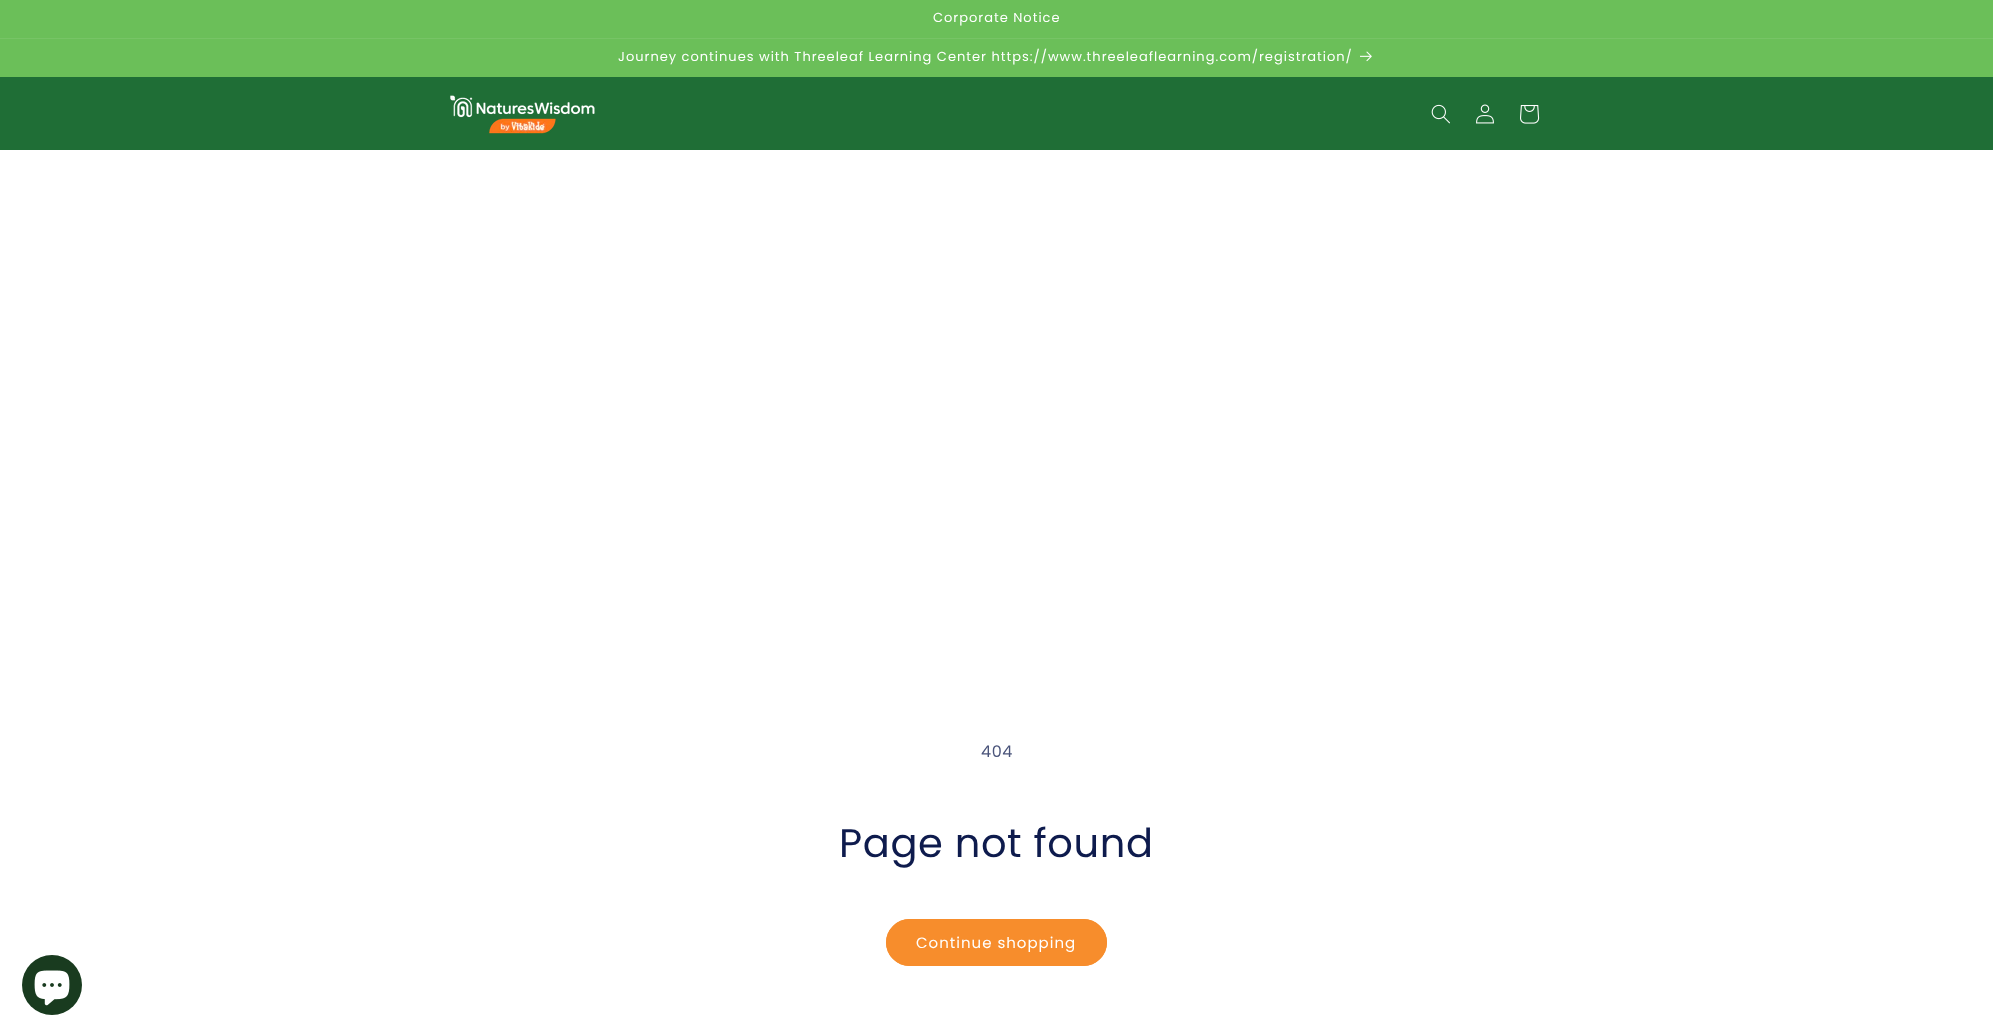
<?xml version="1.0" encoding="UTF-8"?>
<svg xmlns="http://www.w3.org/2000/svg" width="1993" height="1036">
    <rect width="100%" height="100%" fill="#FFFFFF"/>
    <rect x="0" y="0" width="1993" height="38" fill="#6BBF59"/>
    <rect x="0" y="38" width="1993" height="1" fill="#77C466"/>
    <text x="933" y="22" font-family="Poppins" font-size="13" letter-spacing="1" fill="#FFFFFF">Corporate Notice</text>
    <rect x="0" y="39" width="1993" height="38" fill="#6BBF59"/>
    <text x="618" y="61" font-family="Poppins" font-size="13" letter-spacing="1" fill="#FFFFFF">Journey continues with Threeleaf Learning Center https://www.threeleaflearning.com/registration/</text>
    <image x="1360" y="51" width="12" height="11" href="img_01.png"/>
    <rect x="0" y="77" width="1993" height="73" fill="#1F6E36"/>
    <image x="450" y="95" width="145" height="39" href="img_02.png"/>
    <image x="1431" y="104" width="19" height="20" href="img_03.png"/>
    <image x="1476" y="104" width="18" height="20" href="img_04.png"/>
    <image x="1520" y="105" width="20" height="19" href="img_05.png"/>
    <text x="981" y="757" font-family="Poppins" font-size="16" letter-spacing="0.6" fill="#4A547A">404</text>
    <text x="839" y="857" font-family="Poppins" font-size="40" letter-spacing="0.6" fill="#0E1B4D">Page not found</text>
    <rect x="886" y="919" width="221" height="47" rx="23.5" fill="#F78D2C"/>
    <rect x="886.5" y="919.5" width="220" height="46" rx="23" fill="none" stroke="#F78D2C"/>
    <text x="916" y="948" font-family="Poppins" font-size="15" letter-spacing="1" fill="#FFFFFF">Continue shopping</text>
    <circle cx="52" cy="985" r="30" fill="#193B1F"/>
    <image x="34" y="970" width="36" height="36" href="img_06.png"/>
</svg>
